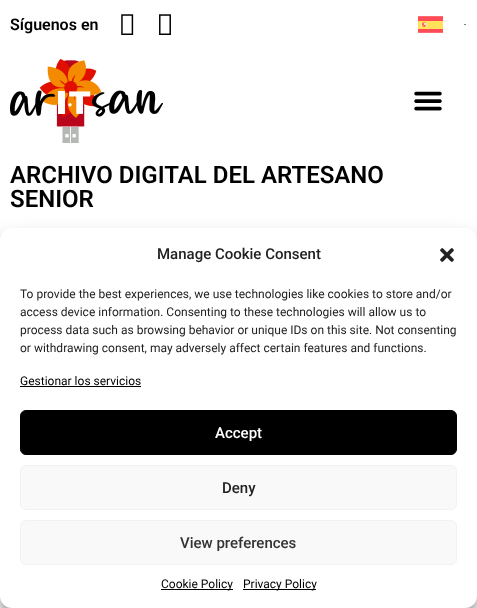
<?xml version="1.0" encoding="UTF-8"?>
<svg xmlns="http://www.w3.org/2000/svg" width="477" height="608">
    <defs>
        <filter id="blur1" x="-50%" y="-200%" width="200%" height="500%"><feGaussianBlur stdDeviation="3"/></filter>
        <filter id="blur2" x="-50%" y="-200%" width="200%" height="500%"><feGaussianBlur stdDeviation="10"/></filter>
    </defs>
    <rect width="100%" height="100%" fill="#FFFFFF"/>
    <text x="10" y="30" font-family="Roboto" font-size="16" font-weight="600" fill="#000000">Síguenos en</text>
    <image x="121" y="14" width="13" height="21" href="img_01.png"/>
    <image x="159" y="14" width="12" height="21" href="img_02.png"/>
    <image x="418" y="16" width="25" height="17" href="img_03.png"/>
    <path d="M 464 24 H 466 L 465 25 Z" fill="#000000"/>
    <image x="10" y="59" width="153" height="84" href="img_04.png"/>
    <image x="414" y="91" width="28" height="20" href="img_05.png"/>
    <text font-family="Roboto" font-size="24" font-weight="600" fill="#000000">
        <tspan x="10" y="183">ARCHIVO DIGITAL DEL ARTESANO</tspan>
        <tspan x="10" y="207">SENIOR</tspan>
    </text>
    <rect x="0" y="234" width="477" height="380" rx="12" fill="#000000" fill-opacity="0.23" filter="url(#blur1)"/>
    <rect x="0" y="238" width="477" height="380" rx="12" fill="#000000" fill-opacity="0.19" filter="url(#blur2)"/>
    <rect x="0" y="228" width="477" height="380" rx="12" fill="#FFFFFF"/>
    <text x="157" y="259" font-family="Roboto" font-size="15" font-weight="500" fill="#222222">Manage Cookie Consent</text>
    <image x="440" y="248" width="14" height="14" href="img_06.png"/>
    <text font-family="Roboto" font-size="12" fill="#222222">
        <tspan x="20" y="298">To provide the best experiences, we use technologies like cookies to store and/or</tspan>
        <tspan x="20" y="316">access device information. Consenting to these technologies will allow us to</tspan>
        <tspan x="20" y="334">process data such as browsing behavior or unique IDs on this site. Not consenting</tspan>
        <tspan x="20" y="352">or withdrawing consent, may adversely affect certain features and functions.</tspan>
    </text>
    <text x="20" y="385" font-family="Roboto" font-size="12" fill="#000000">Gestionar los servicios</text>
    <rect x="20" y="386" width="121" height="1" fill="#000000"/>
    <rect x="20.5" y="410.5" width="436" height="44" rx="5.5" fill="#000000" stroke="#000000"/>
    <text x="215" y="438" font-family="Roboto" font-size="15" font-weight="500" fill="#FFFFFF">Accept</text>
    <rect x="20.5" y="465.5" width="436" height="44" rx="5.5" fill="#F9F9F9" stroke="#F2F2F2"/>
    <text x="222" y="493" font-family="Roboto" font-size="15" font-weight="500" fill="#222222">Deny</text>
    <rect x="20.5" y="520.5" width="436" height="44" rx="5.5" fill="#F9F9F9" stroke="#F2F2F2"/>
    <text x="180" y="548" font-family="Roboto" font-size="15" font-weight="500" fill="#333333">View preferences</text>
    <rect x="161" y="589" width="72" height="1" fill="#000000"/>
    <text x="161" y="588" font-family="Roboto" font-size="12" fill="#000000">Cookie Policy</text>
    <rect x="243" y="589" width="73" height="1" fill="#000000"/>
    <text x="243" y="588" font-family="Roboto" font-size="12" fill="#000000">Privacy Policy</text>
</svg>
